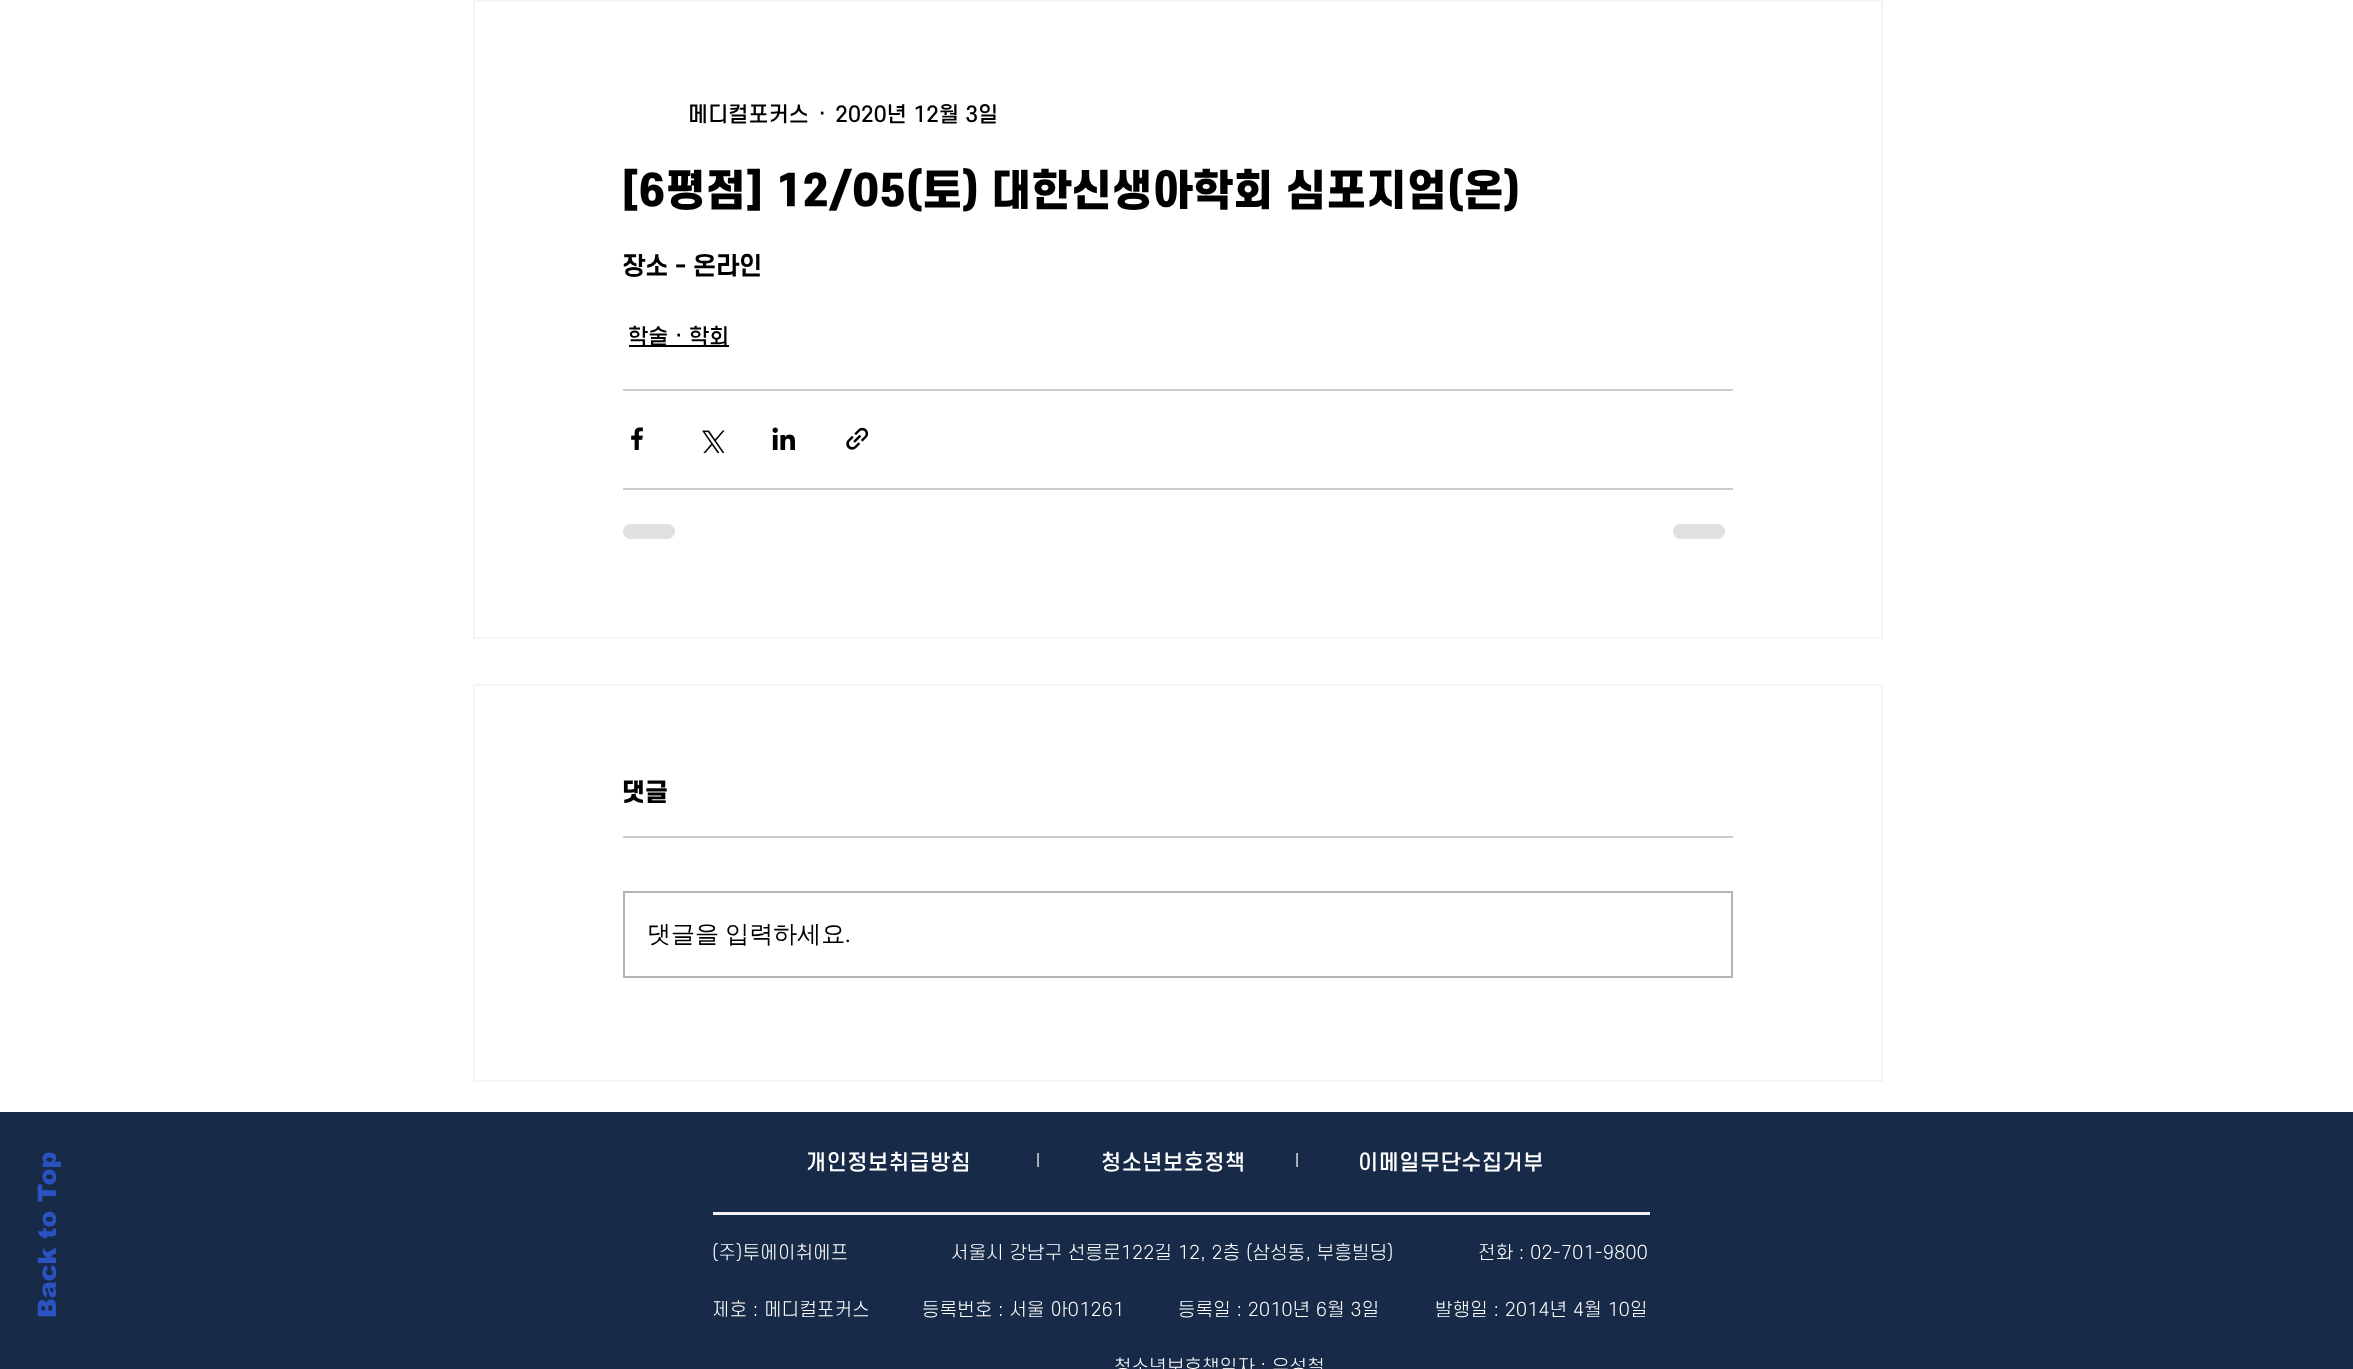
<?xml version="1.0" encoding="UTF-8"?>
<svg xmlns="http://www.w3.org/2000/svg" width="2353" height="1369">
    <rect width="100%" height="100%" fill="#FFFFFF"/>
    <rect x="474" y="1" width="1408" height="637" fill="none" stroke="#F5F5F5" stroke-width="2"/>
    <text x="688" y="122" font-family="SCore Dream" font-size="21" font-weight="500" fill="#000000">메디컬포커스</text>
    <text x="818" y="122" font-family="SCore Dream" font-size="21" font-weight="500" fill="#000000">·</text>
    <text x="835" y="122" font-family="SCore Dream" font-size="21" font-weight="500" fill="#000000">2020년 12월 3일</text>
    <text x="622" y="206" font-family="SCore Dream" font-size="42" font-weight="900" fill="#000000">[6평점] 12/05(토) 대한신생아학회 심포지엄(온)</text>
    <text x="622" y="275" font-family="SCore Dream" font-size="24" font-weight="700" fill="#000000">장소 - 온라인</text>
    <rect x="629" y="345" width="100" height="2" fill="#000000"/>
    <text x="628" y="344" font-family="SCore Dream" font-size="21" font-weight="500" fill="#000000">학술 · 학회</text>
    <rect x="623" y="389" width="1110" height="2" fill="#CCCCCC"/>
    <image x="631" y="427" width="12" height="23" href="img_01.png"/>
    <image x="702" y="430" width="23" height="23" href="img_02.png"/>
    <image x="772" y="427" width="23" height="23" href="img_03.png"/>
    <image x="846" y="427" width="23" height="23" href="img_04.png"/>
    <rect x="623" y="488" width="1110" height="2" fill="#CCCCCC"/>
    <rect x="623" y="524" width="52" height="15" rx="7.5" fill="#E0E0E0"/>
    <rect x="1673" y="524" width="52" height="15" rx="7.5" fill="#E0E0E0"/>
    <rect x="474" y="685" width="1408" height="396" fill="none" stroke="#F5F5F5" stroke-width="2"/>
    <text x="622" y="801" font-family="SCore Dream" font-size="24" font-weight="900" fill="#000000">댓글</text>
    <rect x="623" y="836" width="1110" height="2" fill="#CCCCCC"/>
    <rect x="624" y="892" width="1108" height="85" fill="none" stroke="#B3B3B3" stroke-width="2"/>
    <text x="647" y="942" word-spacing="-1" font-family="WenQuanYi Zen Hei" font-size="24" font-weight="500" fill="#000000">댓글을 입력하세요</text>
    <text x="845" y="942" font-family="'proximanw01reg'" font-size="24" fill="#000000">.</text>
    <rect x="0" y="1112" width="2353" height="257" fill="#172A47"/>
    <text x="56" y="1318" transform="rotate(-90 56 1318)" font-family="arial" font-size="25.5" font-weight="900" fill="#2A53C1">Back to Top</text>
    <text x="806" y="1170" font-family="SCore Dream" font-size="21" font-weight="500" letter-spacing="0.5" fill="#FFFFFF">개인정보취급방침</text>
    <text x="1036" y="1167" font-family="SCore Dream" font-size="18" font-weight="300" letter-spacing="0.35" fill="#FFFFFF">I</text>
    <text x="1101" y="1170" font-family="SCore Dream" font-size="21" font-weight="500" letter-spacing="0.5" fill="#FFFFFF">청소년보호정책</text>
    <text x="1295" y="1167" font-family="SCore Dream" font-size="18" font-weight="300" letter-spacing="0.35" fill="#FFFFFF">I</text>
    <text x="1358" y="1170" font-family="SCore Dream" font-size="21" font-weight="500" letter-spacing="0.5" fill="#FFFFFF">이메일무단수집거부</text>
    <rect x="713" y="1212" width="937" height="3" fill="#F2F2F2"/>
    <text x="712" y="1259" font-family="SCore Dream" font-size="18" font-weight="300" letter-spacing="0.35" fill="#FFFFFF">(주)투에이취에프</text>
    <text x="951" y="1259" font-family="SCore Dream" font-size="18" font-weight="300" letter-spacing="0.35" fill="#FFFFFF">서울시 강남구 선릉로122길 12, 2층 (삼성동, 부흥빌딩)</text>
    <text x="1478" y="1259" font-family="SCore Dream" font-size="18" font-weight="300" letter-spacing="0.35" fill="#FFFFFF">전화 : 02-701-9800</text>
    <text x="712" y="1316" font-family="SCore Dream" font-size="18" font-weight="300" letter-spacing="0.35" fill="#FFFFFF">제호 : 메디컬포커스</text>
    <text x="922" y="1316" font-family="SCore Dream" font-size="18" font-weight="300" letter-spacing="0.35" fill="#FFFFFF">등록번호 : 서울 아01261</text>
    <text x="1178" y="1316" font-family="SCore Dream" font-size="18" font-weight="300" letter-spacing="0.35" fill="#FFFFFF">등록일 : 2010년 6월 3일</text>
    <text x="1435" y="1316" font-family="SCore Dream" font-size="18" font-weight="300" letter-spacing="0.35" fill="#FFFFFF">발행일 : 2014년 4월 10일</text>
    <text x="1114" y="1373" font-family="SCore Dream" font-size="18" font-weight="300" letter-spacing="0.35" fill="#FFFFFF">청소년보호책임자 : 유성철</text>
</svg>
